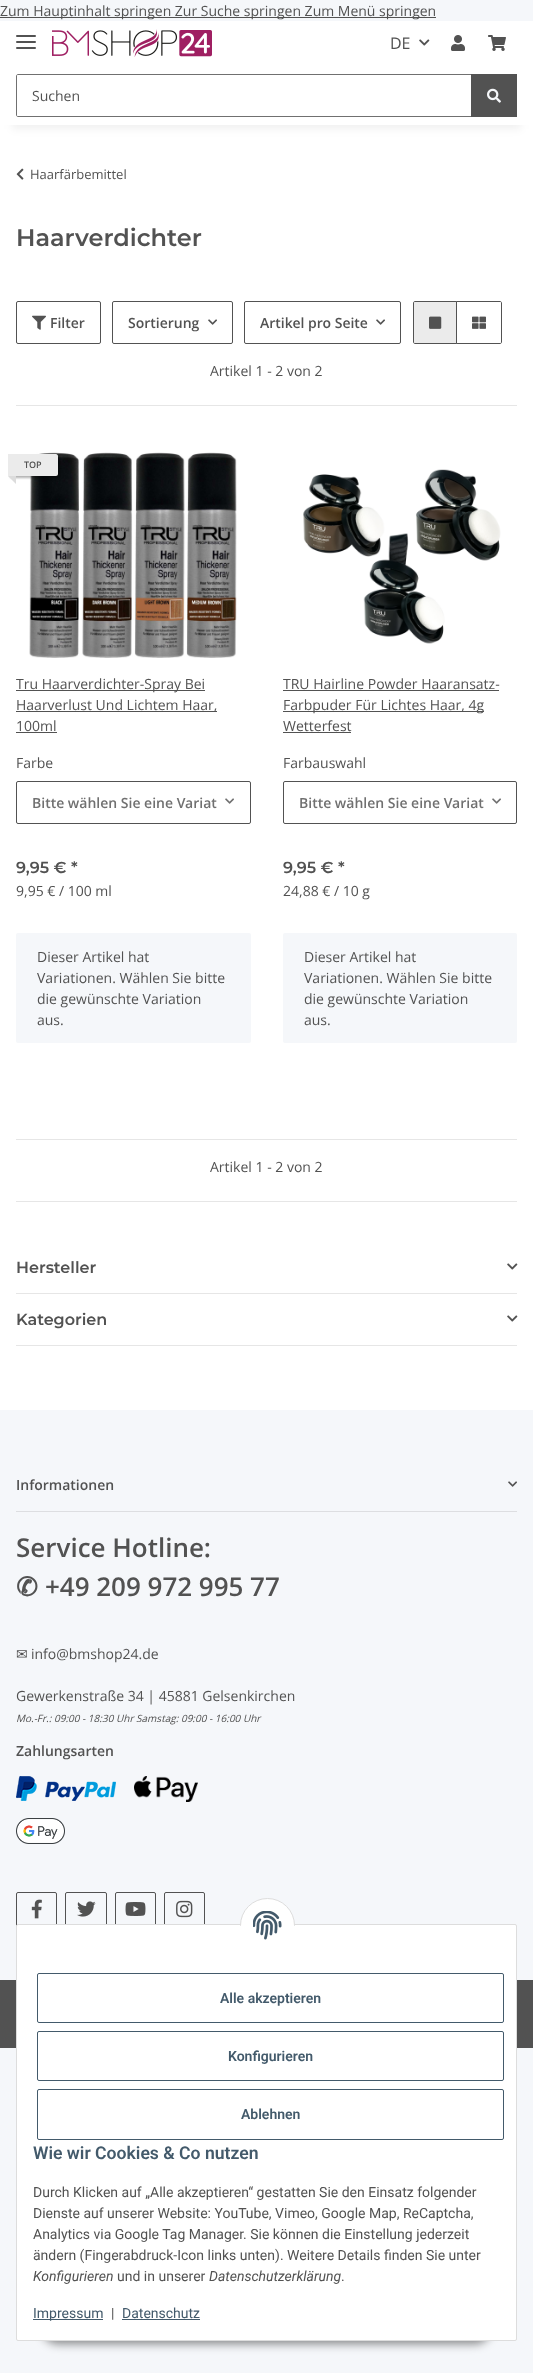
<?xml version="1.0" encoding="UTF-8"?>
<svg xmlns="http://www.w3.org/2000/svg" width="533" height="2373">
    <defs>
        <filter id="blur1" x="-50%" y="-200%" width="200%" height="500%"><feGaussianBlur stdDeviation="4.5"/></filter>
        <filter id="blur2" x="-50%" y="-200%" width="200%" height="500%"><feGaussianBlur stdDeviation="1"/></filter>
        <filter id="blur3" x="-50%" y="-200%" width="200%" height="500%"><feGaussianBlur stdDeviation="5"/></filter>
    </defs>
    <rect width="100%" height="100%" fill="#F5F7FA"/>
    <rect x="0" y="17" width="436" height="1" fill="#525252"/>
    <text x="0" y="16" font-family="Open Sans" font-size="14" fill="#525252">Zum Hauptinhalt springen Zur Suche springen Zum Menü springen</text>
    <rect x="0" y="125" width="533" height="1285" fill="#FFFFFF"/>
    <rect x="12" y="49" width="509" height="80" fill="#000000" fill-opacity="0.06" filter="url(#blur1)"/>
    <rect x="0" y="21" width="533" height="104" fill="#FFFFFF"/>
    <rect x="16" y="41" width="20" height="2" rx="1" fill="#525252"/>
    <rect x="16" y="35" width="20" height="2" rx="1" fill="#525252"/>
    <rect x="16" y="47" width="20" height="2" rx="1" fill="#525252"/>
    <image x="52" y="29" width="160" height="28" href="img_01.png"/>
    <text x="390" y="49" font-family="Open Sans" font-size="16" fill="#525252">DE</text>
    <image x="419" y="39" width="11" height="7" href="img_02.png"/>
    <image x="451" y="35" width="14" height="16" href="img_03.png"/>
    <image x="488" y="35" width="18" height="16" href="img_04.png"/>
    <path d="M 18 74.5 H 471.5 V 116.5 H 18 C 17 116.5 16.5 116 16.5 115 V 76 C 16.5 75 17 74.5 18 74.5 Z" fill="none" stroke="#707070"/>
    <text x="32" y="101" font-family="Open Sans" font-size="14" fill="#525252">Suchen</text>
    <rect x="471" y="74" width="46" height="43" fill="#525252"/>
    <image x="487" y="88" width="14" height="15" href="img_05.png"/>
    <image x="16" y="168" width="8" height="12" href="img_06.png"/>
    <text x="30" y="179" font-family="Open Sans" font-size="13" fill="#525252">Haarfärbemittel</text>
    <text x="16" y="246" font-family="Montserrat" font-size="24" font-weight="600" fill="#525252">Haarverdichter</text>
    <rect x="16.5" y="301.5" width="84" height="42" rx="1.5" fill="none" stroke="#525252"/>
    <image x="32" y="315" width="14" height="15" href="img_07.png"/>
    <text x="50" y="328" font-family="Open Sans" font-size="14" font-weight="600" fill="#525252">Filter</text>
    <rect x="112.5" y="301.5" width="120" height="42" rx="1.5" fill="none" stroke="#525252"/>
    <text x="128" y="328" font-family="Open Sans" font-size="14" font-weight="600" fill="#525252">Sortierung</text>
    <image x="208" y="319" width="9" height="6" href="img_08.png"/>
    <rect x="244.5" y="301.5" width="156" height="42" rx="1.5" fill="none" stroke="#525252"/>
    <text x="260" y="328" font-family="Open Sans" font-size="14" font-weight="600" fill="#525252">Artikel pro Seite</text>
    <image x="376" y="319" width="9" height="6" href="img_08.png"/>
    <path d="M 456.5 301.5 H 500 C 501 301.5 501.5 302 501.5 303 V 342 C 501.5 343 501 343.5 500 343.5 H 456.5 Z" fill="none" stroke="#525252"/>
    <path d="M 415 301.5 H 456.5 V 343.5 H 415 C 414 343.5 413.5 343 413.5 342 V 303 C 413.5 302 414 301.5 415 301.5 Z" fill="#EBEBEB" stroke="#525252"/>
    <image x="429" y="316" width="13" height="13" href="img_09.png"/>
    <image x="472" y="316" width="14" height="13" href="img_10.png"/>
    <text x="210" y="376" font-family="Open Sans" font-size="14" fill="#525252">Artikel 1 - 2 von 2</text>
    <rect x="16" y="405" width="501" height="1" fill="#E6E6E6"/>
    <image x="29" y="452" width="208" height="206" href="img_11.png"/>
    <rect x="10" y="456" width="50" height="22" rx="2" fill="#000000" fill-opacity="0.3" filter="url(#blur2)"/>
    <path d="M 8 454 H 56 C 57 454 58 455 58 456 V 474 C 58 475 57 476 56 476 H 8 Z" fill="#EBEBEB"/>
    <text x="24" y="468" font-family="Open Sans" font-size="9" font-weight="600" fill="#525252">TOP</text>
    <path d="M 16 476 V 484 L 8 476 Z" fill="#DCDCDC"/>
    <rect x="16" y="690" width="189" height="1" fill="#525252"/>
    <text x="16" y="689" font-family="Open Sans" font-size="14" fill="#525252">Tru Haarverdichter-Spray Bei</text>
    <rect x="16" y="711" width="201" height="1" fill="#525252"/>
    <text font-family="Open Sans" font-size="14" fill="#525252">
        <tspan x="16" y="710">Haarverlust Und Lichtem Haar,</tspan>
        <tspan x="16" y="731">100ml</tspan>
    </text>
    <rect x="16" y="732" width="41" height="1" fill="#525252"/>
    <text x="16" y="768" font-family="Open Sans" font-size="14" fill="#525252">Farbe</text>
    <rect x="16.5" y="781.5" width="234" height="42" rx="1.5" fill="none" stroke="#525252"/>
    <text x="32" y="808" font-family="Open Sans" font-size="14" font-weight="600" fill="#707070">Bitte wählen Sie eine Variat</text>
    <image x="225" y="798" width="9" height="6" href="img_12.png"/>
    <text x="16" y="873" font-family="Montserrat" font-size="16" font-weight="600" fill="#525252">9,95 € *</text>
    <text x="16" y="896" font-family="Open Sans" font-size="14" fill="#525252">9,95 € / 100 ml</text>
    <rect x="16" y="933" width="235" height="110" rx="2" fill="#F5F7FA"/>
    <text font-family="Open Sans" font-size="14" fill="#525252">
        <tspan x="37" y="962">Dieser Artikel hat</tspan>
        <tspan x="37" y="983">Variationen. Wählen Sie bitte</tspan>
        <tspan x="37" y="1004">die gewünschte Variation</tspan>
        <tspan x="37" y="1025">aus.</tspan>
    </text>
    <image x="303" y="469" width="198" height="175" href="img_13.png"/>
    <text x="283" y="689" font-family="Open Sans" font-size="14" fill="#525252">TRU Hairline Powder Haaransatz-</text>
    <rect x="283" y="690" width="216" height="1" fill="#525252"/>
    <rect x="283" y="711" width="201" height="1" fill="#525252"/>
    <text font-family="Open Sans" font-size="14" fill="#525252">
        <tspan x="283" y="710">Farbpuder Für Lichtes Haar, 4g</tspan>
        <tspan x="283" y="731">Wetterfest</tspan>
    </text>
    <rect x="283" y="732" width="68" height="1" fill="#525252"/>
    <text x="283" y="768" font-family="Open Sans" font-size="14" fill="#525252">Farbauswahl</text>
    <rect x="283.5" y="781.5" width="233" height="42" rx="1.5" fill="none" stroke="#525252"/>
    <text x="299" y="808" font-family="Open Sans" font-size="14" font-weight="600" fill="#707070">Bitte wählen Sie eine Variat</text>
    <image x="492" y="798" width="9" height="6" href="img_12.png"/>
    <text x="283" y="873" font-family="Montserrat" font-size="16" font-weight="600" fill="#525252">9,95 € *</text>
    <text x="283" y="896" font-family="Open Sans" font-size="14" fill="#525252">24,88 € / 10 g</text>
    <rect x="283" y="933" width="234" height="110" rx="2" fill="#F5F7FA"/>
    <text font-family="Open Sans" font-size="14" fill="#525252">
        <tspan x="304" y="962">Dieser Artikel hat</tspan>
        <tspan x="304" y="983">Variationen. Wählen Sie bitte</tspan>
        <tspan x="304" y="1004">die gewünschte Variation</tspan>
        <tspan x="304" y="1025">aus.</tspan>
    </text>
    <rect x="16" y="1139" width="501" height="1" fill="#E6E6E6"/>
    <text x="210" y="1172" font-family="Open Sans" font-size="14" fill="#525252">Artikel 1 - 2 von 2</text>
    <rect x="16" y="1201" width="501" height="1" fill="#E6E6E6"/>
    <text x="16" y="1273" font-family="Montserrat" font-size="16" font-weight="600" fill="#525252">Hersteller</text>
    <image x="507" y="1263" width="11" height="7" href="img_02.png"/>
    <rect x="16" y="1293" width="501" height="1" fill="#E6E6E6"/>
    <text x="16" y="1325" font-family="Montserrat" font-size="16" font-weight="600" fill="#525252">Kategorien</text>
    <image x="507" y="1315" width="11" height="7" href="img_02.png"/>
    <rect x="16" y="1345" width="501" height="1" fill="#E6E6E6"/>
    <text x="16" y="1490" font-family="Open Sans" font-size="14" font-weight="600" fill="#525252">Informationen</text>
    <image x="508" y="1481" width="9" height="6" href="img_14.png"/>
    <rect x="16" y="1511" width="501" height="1" fill="#DDDEE1"/>
    <text x="16" y="1557" font-family="Open Sans" font-size="26" font-weight="600" fill="#525252">Service Hotline:</text>
    <text x="16" y="1596" font-family="DejaVu Sans" font-size="26" font-weight="700" fill="#525252">✆</text>
    <text x="45" y="1596" font-family="Open Sans" font-size="26" font-weight="600" fill="#525252">+49 209 972 995 77</text>
    <text x="16" y="1659" font-family="DejaVu Sans" font-size="14" fill="#525252">✉</text>
    <text x="31" y="1659" font-family="Open Sans" font-size="14" fill="#525252">info@bmshop24.de</text>
    <text x="16" y="1701" font-family="Open Sans" font-size="14" fill="#525252">Gewerkenstraße 34 | 45881 Gelsenkirchen</text>
    <text x="16" y="1722" font-family="Open Sans" font-size="10" font-style="italic" fill="#525252">Mo.-Fr.: 09:00 - 18:30 Uhr Samstag: 09:00 - 16:00 Uhr</text>
    <text x="16" y="1756" font-family="Open Sans" font-size="14" font-weight="600" fill="#525252">Zahlungsarten</text>
    <image x="16" y="1776" width="100" height="25" href="img_15.png"/>
    <image x="134" y="1776" width="64" height="26" href="img_16.png"/>
    <image x="16" y="1818" width="49" height="26" href="img_17.png"/>
    <rect x="16.5" y="1892.5" width="40" height="34" rx="1.5" fill="none" stroke="#525252"/>
    <image x="31" y="1899" width="11" height="20" href="img_18.png"/>
    <rect x="65.5" y="1892.5" width="41" height="34" rx="1.5" fill="none" stroke="#525252"/>
    <image x="77" y="1901" width="19" height="16" href="img_19.png"/>
    <rect x="115.5" y="1892.5" width="40" height="34" rx="1.5" fill="none" stroke="#525252"/>
    <image x="125" y="1902" width="21" height="14" href="img_20.png"/>
    <rect x="164.5" y="1892.5" width="40" height="34" rx="1.5" fill="none" stroke="#525252"/>
    <image x="176" y="1900" width="17" height="18" href="img_21.png"/>
    <rect x="0" y="1980" width="533" height="68" fill="#525252"/>
    <rect x="42" y="2312" width="449" height="32" rx="16" fill="#000000" fill-opacity="0.45" filter="url(#blur3)"/>
    <rect x="16.5" y="1924.5" width="500" height="416" rx="1.5" fill="#FFFFFF" stroke="#DDDDDD"/>
    <circle cx="267.5" cy="1925.5" r="27" fill="#FFFFFF" stroke="#DDDDDD"/>
    <rect x="240" y="1926" width="55" height="27" fill="#FFFFFF"/>
    <image x="253" y="1911" width="29" height="29" href="img_22.png"/>
    <rect x="37.5" y="1973.5" width="466" height="49" rx="1.5" fill="none" stroke="#435A6B"/>
    <text x="220" y="2003" font-family="Roboto" font-size="14" font-weight="600" fill="#435A6B">Alle akzeptieren</text>
    <rect x="37.5" y="2031.5" width="466" height="49" rx="1.5" fill="none" stroke="#435A6B"/>
    <text x="228" y="2061" font-family="Roboto" font-size="14" font-weight="600" fill="#435A6B">Konfigurieren</text>
    <rect x="37.5" y="2089.5" width="466" height="50" rx="1.5" fill="none" stroke="#435A6B"/>
    <text x="241" y="2119" font-family="Roboto" font-size="14" font-weight="600" fill="#435A6B">Ablehnen</text>
    <text x="33" y="2159" font-family="Roboto" font-size="17.6" font-weight="600" fill="#435A6B">Wie wir Cookies &amp; Co nutzen</text>
    <text font-family="Roboto" font-size="14" fill="#525252">
        <tspan x="33" y="2197">Durch Klicken auf „Alle akzeptieren“ gestatten Sie den Einsatz folgender</tspan>
        <tspan x="33" y="2218">Dienste auf unserer Website: YouTube, Vimeo, Google Map, ReCaptcha,</tspan>
        <tspan x="33" y="2239">Analytics via Google Tag Manager. Sie können die Einstellung jederzeit</tspan>
        <tspan x="33" y="2260">ändern (Fingerabdruck-Icon links unten). Weitere Details finden Sie unter</tspan>
    </text>
    <text x="33" y="2281" font-family="Roboto" font-size="14" font-style="italic" fill="#525252">Konfigurieren</text>
    <text x="117" y="2281" font-family="Roboto" font-size="14" fill="#525252">und in unserer</text>
    <text x="209" y="2281" font-family="Roboto" font-size="14" font-style="italic" fill="#525252">Datenschutzerklärung</text>
    <text x="341" y="2281" font-family="Roboto" font-size="14" fill="#525252">.</text>
    <rect x="33" y="2319" width="70" height="1" fill="#435A6B"/>
    <text x="33" y="2318" font-family="Roboto" font-size="14" fill="#435A6B">Impressum</text>
    <text x="111" y="2318" font-family="Roboto" font-size="14" fill="#525252">|</text>
    <text x="122" y="2318" font-family="Roboto" font-size="14" fill="#435A6B">Datenschutz</text>
    <rect x="122" y="2319" width="78" height="1" fill="#435A6B"/>
</svg>
